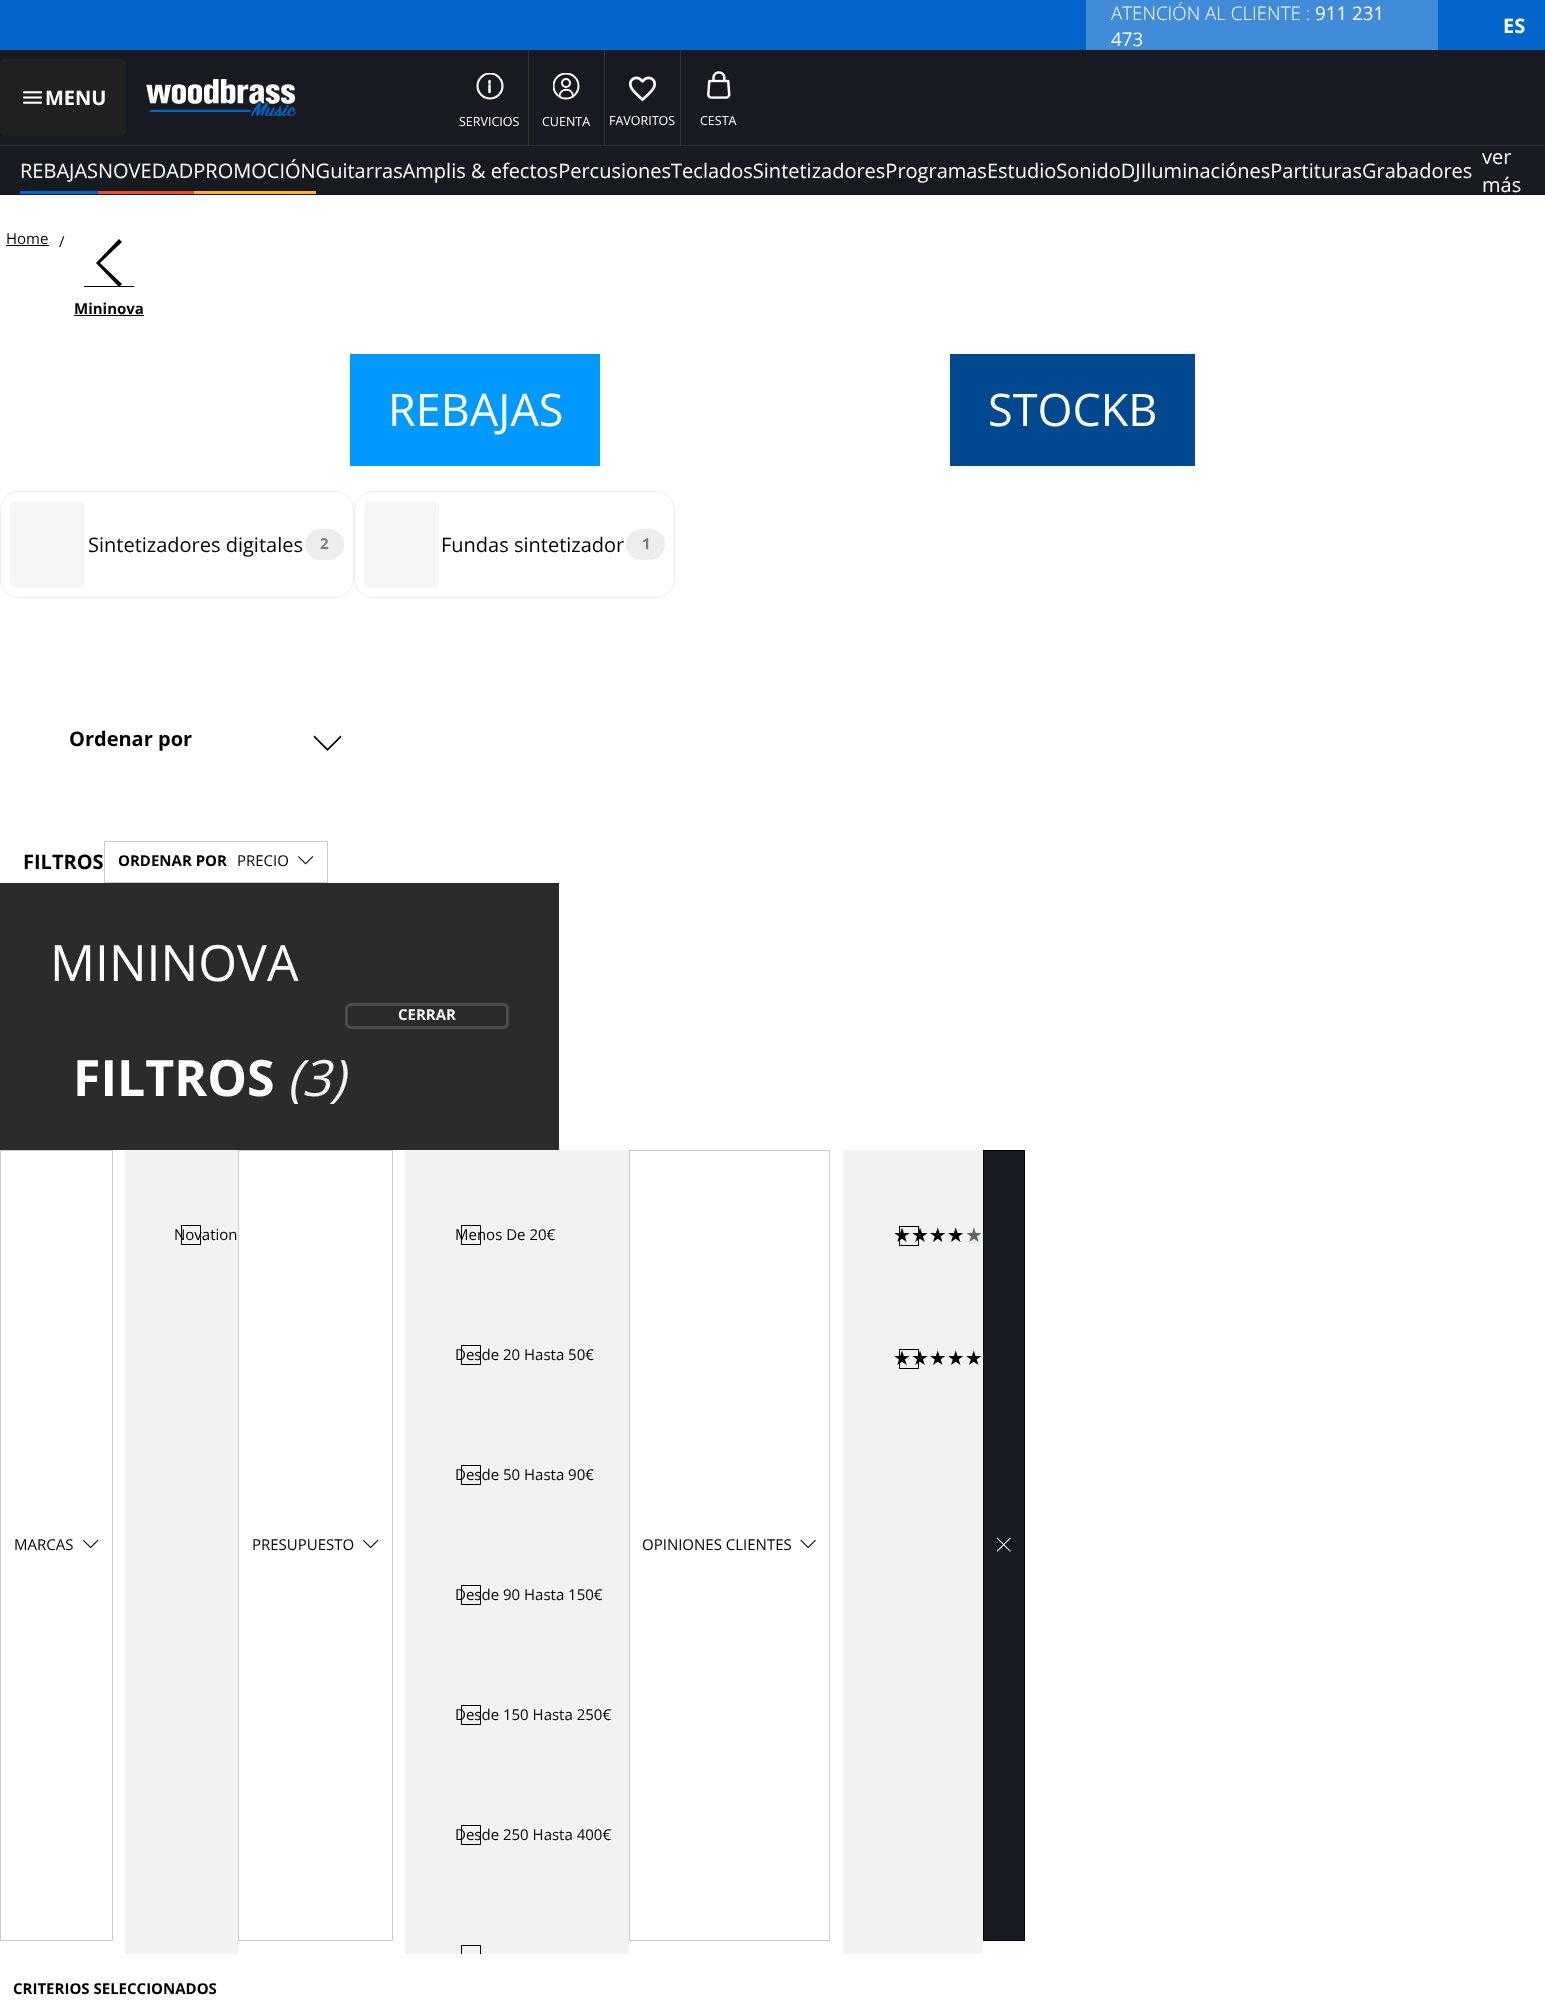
<?xml version="1.0" encoding="UTF-8"?>
<svg xmlns="http://www.w3.org/2000/svg" width="1545" height="2010">
    <defs>
        <clipPath id="clip1"><rect x="476" y="73" width="28" height="27"/></clipPath>
        <clipPath id="clip2"><rect x="553" y="73" width="27" height="27"/></clipPath>
        <clipPath id="clip3"><rect x="405" y="1150" width="224" height="804"/></clipPath>
    </defs>
    <rect width="100%" height="100%" fill="#0066CC"/>
    <rect x="1086" y="0" width="352" height="50" fill="#408CD9"/>
    <text x="1111" y="20" font-family="Open Sans" font-size="18.75" font-weight="300" fill="#FFFFFF">ATENCIÓN AL CLIENTE :</text>
    <text x="1315" y="20" font-family="Open Sans" font-size="18.75" fill="#FFFFFF">911 231</text>
    <text x="1111" y="46" font-family="Open Sans" font-size="18.75" fill="#FFFFFF">473</text>
    <text x="1503" y="33" font-family="Open Sans" font-size="20" font-weight="700" fill="#FFFFFF">ES</text>
    <rect x="0" y="50" width="1545" height="95" fill="#181A22"/>
    <rect x="0" y="59" width="126" height="77" rx="5" fill="#202020"/>
    <image x="23" y="91" width="19" height="13" href="img_01.png"/>
    <text x="45" y="105" font-family="Open Sans" font-size="20" font-weight="700" fill="#FFFFFF">MENU</text>
    <image x="146" y="79" width="150" height="37" href="img_02.png"/>
    <g clip-path="url(#clip1)">
        <circle cx="490" cy="86" r="12.5" fill="none" stroke="#FFFFFF" stroke-width="2.1"/>
    </g>
    <path d="M 489.5 92 V 85.5 M 489.5 83 V 81" fill="none" stroke="#FFFFFF" stroke-width="2.5" stroke-linecap="round"/>
    <text x="459" y="126" font-family="Open Sans" font-size="12.5" fill="#FFFFFF">SERVICIOS</text>
    <rect x="528" y="50" width="1" height="95" fill="#333333"/>
    <circle cx="566" cy="83" r="4" fill="none" stroke="#FFFFFF" stroke-width="2"/>
    <path d="M 573 96.5 C 573 87.5 559.5 87.5 559.5 96.5" fill="none" stroke="#FFFFFF" stroke-width="2" stroke-linecap="round"/>
    <g clip-path="url(#clip2)">
        <circle cx="566" cy="86" r="12.5" fill="none" stroke="#FFFFFF" stroke-width="2"/>
    </g>
    <text x="542" y="126" font-family="Open Sans" font-size="12.5" fill="#FFFFFF">CUENTA</text>
    <rect x="604" y="50" width="1" height="95" fill="#333333"/>
    <image x="629" y="76" width="27" height="26" href="img_03.png"/>
    <text x="609" y="125" font-family="Open Sans" font-size="12.5" fill="#FFFFFF">FAVORITOS</text>
    <rect x="680" y="50" width="1" height="95" fill="#333333"/>
    <image x="707" y="71" width="24" height="28" href="img_04.png"/>
    <text x="700" y="125" font-family="Open Sans" font-size="12.5" fill="#FFFFFF">CESTA</text>
    <rect x="0" y="146" width="1545" height="49" fill="#181A22"/>
    <rect x="0" y="145" width="1545" height="1" fill="#2D2F37"/>
    <text x="20" y="178" font-family="Open Sans" font-size="20" fill="#FFFFFF">REBAJASNOVEDADPROMOCIÓNGuitarrasAmplis &amp; efectosPercusionesTecladosSintetizadoresProgramasEstudioSonidoDJIluminaciónesPartiturasGrabadores</text>
    <rect x="20" y="191" width="78" height="3" fill="#0066CC"/>
    <text font-family="Open Sans" font-size="20" fill="#FFFFFF">
        <tspan x="1482" y="164">ver</tspan>
        <tspan x="1482" y="192">más</tspan>
    </text>
    <rect x="98" y="191" width="96" height="3" fill="#E74C3C"/>
    <rect x="194" y="191" width="122" height="3" fill="#FFB127"/>
    <rect x="0" y="195" width="1545" height="1815" fill="#FFFFFF"/>
    <text x="6" y="244" font-family="Open Sans" font-size="15" fill="#000000">Home</text>
    <rect x="6" y="245" width="43" height="1" fill="#000000"/>
    <text x="59" y="247" font-family="Open Sans" font-size="15" fill="#000000">/</text>
    <rect x="84" y="286" width="50" height="1" fill="#000000"/>
    <path d="M 119 287 L 122 284 L 100 263 L 122 242 L 119 239 L 96 263 Z" fill="#000000"/>
    <text x="74" y="314" font-family="Open Sans" font-size="15" font-weight="700" fill="#000000">Mininova</text>
    <rect x="74" y="315" width="70" height="1" fill="#000000"/>
    <rect x="350" y="354" width="250" height="112" fill="#0099FF"/>
    <text x="388" y="426" font-family="Open Sans" font-size="45" fill="#FFFFFF">REBAJAS</text>
    <rect x="950" y="354" width="245" height="112" fill="#004890"/>
    <text x="988" y="426" font-family="Open Sans" font-size="45" fill="#FFFFFF">STOCKB</text>
    <rect x="0.5" y="491.5" width="353" height="106" rx="18.5" fill="none" stroke="#EDEDED"/>
    <rect x="10" y="501" width="75" height="87" rx="6" fill="#F5F5F5"/>
    <text x="88" y="552" font-family="Open Sans" font-size="20" fill="#000000">Sintetizadores digitales</text>
    <rect x="305" y="529" width="39" height="31" rx="15.5" fill="#EDEDED"/>
    <text x="320" y="549" font-family="Open Sans" font-size="15" font-weight="700" fill="#7C7C7C">2</text>
    <rect x="354.5" y="491.5" width="320" height="106" rx="18.5" fill="none" stroke="#EDEDED"/>
    <rect x="364" y="501" width="75" height="87" rx="6" fill="#F5F5F5"/>
    <text x="441" y="552" font-family="Open Sans" font-size="20" fill="#000000">Fundas sintetizador</text>
    <rect x="626" y="529" width="39" height="31" rx="15.5" fill="#EDEDED"/>
    <text x="642" y="549" font-family="Open Sans" font-size="15" font-weight="700" fill="#7C7C7C">1</text>
    <text x="69" y="746" font-family="Open Sans" font-size="20" font-weight="700" fill="#000000">Ordenar por</text>
    <path d="M 341.5 737 L 340.5 735.5 L 327.5 748.5 L 314.5 735.5 L 313.5 737 L 327.5 751 Z" fill="#000000"/>
    <text x="23" y="869" font-family="Open Sans" font-size="20" font-weight="700" fill="#000000">FILTROS</text>
    <rect x="104.5" y="841.5" width="223" height="41" fill="none" stroke="#CCCCCC"/>
    <text x="118" y="866" font-family="Open Sans" font-size="15" font-weight="700" fill="#000000">ORDENAR POR</text>
    <text x="237" y="866" font-family="Open Sans" font-size="15" fill="#000000">PRECIO</text>
    <image x="298" y="856" width="16" height="9" href="img_05.png"/>
    <rect x="0" y="883" width="559" height="267" fill="#2B2B2B"/>
    <text x="50" y="981" font-family="Open Sans" font-size="50" fill="#FFFFFF">MININOVA</text>
    <text x="73" y="1096" font-family="Open Sans" font-size="50" font-weight="700" fill="#FFFFFF">FILTROS</text>
    <text x="287" y="1096" font-family="Open Sans" font-size="50" font-style="italic" fill="#F2F2F2">(3)</text>
    <rect x="346.5" y="1004.5" width="161" height="23" rx="4.5" fill="none" stroke="#4D4D4D" stroke-width="3"/>
    <text x="398" y="1020" font-family="Open Sans" font-size="15" font-weight="700" fill="#F2F2F2">CERRAR</text>
    <rect x="0.5" y="1150.5" width="112" height="790" fill="none" stroke="#CCCCCC"/>
    <text x="14" y="1550" font-family="Open Sans" font-size="15" fill="#000000">MARCAS</text>
    <image x="83" y="1539" width="16" height="10" href="img_06.png"/>
    <rect x="125" y="1150" width="113" height="804" fill="#F2F2F2"/>
    <rect x="181.5" y="1225.5" width="19" height="19" fill="none" stroke="#000000"/>
    <text x="174" y="1240" font-family="Open Sans" font-size="15" fill="#000000">Novation</text>
    <rect x="238.5" y="1150.5" width="154" height="790" fill="none" stroke="#CCCCCC"/>
    <text x="252" y="1550" font-family="Open Sans" font-size="15" fill="#000000">PRESUPUESTO</text>
    <image x="363" y="1539" width="16" height="10" href="img_06.png"/>
    <rect x="405" y="1150" width="224" height="804" fill="#F2F2F2"/>
    <rect x="461.5" y="1225.5" width="19" height="19" fill="none" stroke="#000000"/>
    <text x="455" y="1240" font-family="Open Sans" font-size="15" fill="#000000">Menos De 20€</text>
    <rect x="461.5" y="1345.5" width="19" height="19" fill="none" stroke="#000000"/>
    <text x="455" y="1360" font-family="Open Sans" font-size="15" fill="#000000">Desde 20 Hasta 50€</text>
    <rect x="461.5" y="1465.5" width="19" height="19" fill="none" stroke="#000000"/>
    <text x="455" y="1480" font-family="Open Sans" font-size="15" fill="#000000">Desde 50 Hasta 90€</text>
    <rect x="461.5" y="1585.5" width="19" height="19" fill="none" stroke="#000000"/>
    <text x="455" y="1600" font-family="Open Sans" font-size="15" fill="#000000">Desde 90 Hasta 150€</text>
    <rect x="461.5" y="1705.5" width="19" height="19" fill="none" stroke="#000000"/>
    <text x="455" y="1720" font-family="Open Sans" font-size="15" fill="#000000">Desde 150 Hasta 250€</text>
    <rect x="461.5" y="1825.5" width="19" height="19" fill="none" stroke="#000000"/>
    <text x="455" y="1840" font-family="Open Sans" font-size="15" fill="#000000">Desde 250 Hasta 400€</text>
    <g clip-path="url(#clip3)">
        <rect x="461.5" y="1945.5" width="19" height="19" fill="none" stroke="#000000"/>
    </g>
    <rect x="629.5" y="1150.5" width="200" height="790" fill="none" stroke="#CCCCCC"/>
    <text x="642" y="1550" font-family="Open Sans" font-size="15" fill="#000000">OPINIONES CLIENTES</text>
    <image x="800" y="1539" width="16" height="10" href="img_07.png"/>
    <rect x="843" y="1150" width="140" height="804" fill="#F2F2F2"/>
    <rect x="899.5" y="1226.5" width="19" height="19" fill="none" stroke="#000000"/>
    <text x="893" y="1242" font-family="DejaVu Sans" font-size="20" fill="#000000">★★★★</text>
    <text x="965" y="1242" font-family="DejaVu Sans" font-size="20" fill="#666666">★</text>
    <rect x="899.5" y="1349.5" width="19" height="19" fill="none" stroke="#000000"/>
    <text x="893" y="1365" font-family="DejaVu Sans" font-size="20" fill="#000000">★★★★★</text>
    <rect x="983.5" y="1150.5" width="41" height="790" fill="#181A22" stroke="#000000"/>
    <image x="996" y="1537" width="15" height="15" href="img_08.png"/>
    <text x="13" y="1994" font-family="Open Sans" font-size="15" font-weight="700" fill="#000000">CRITERIOS SELECCIONADOS</text>
</svg>
